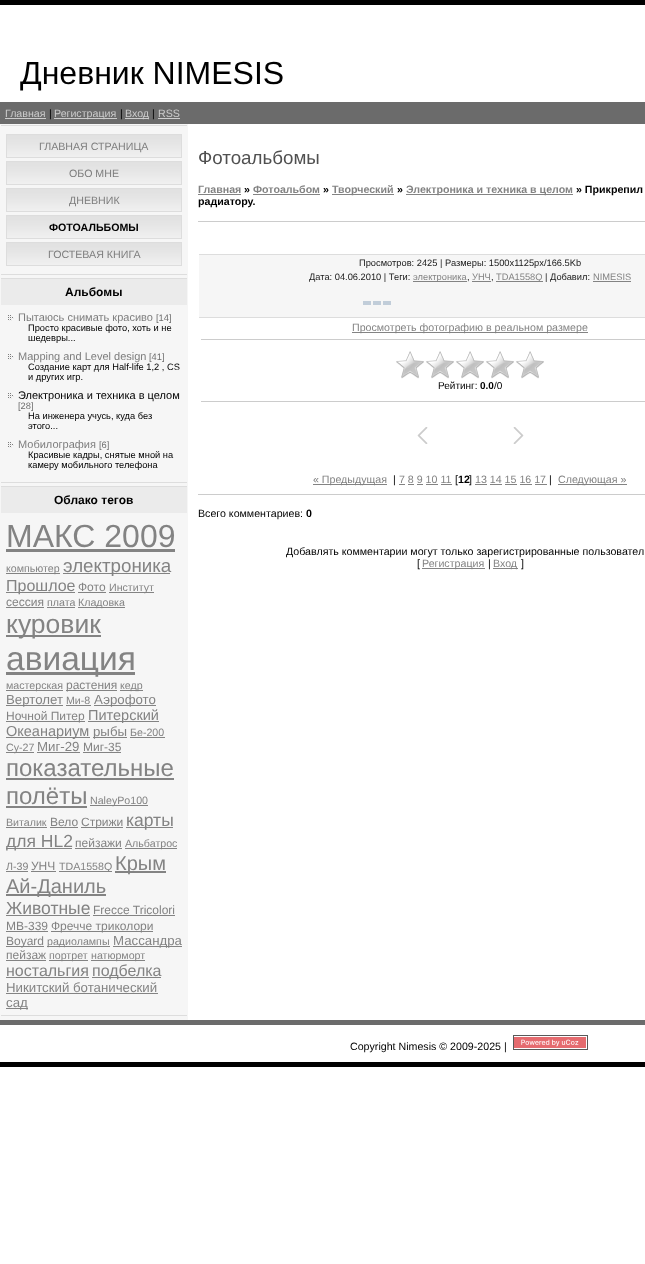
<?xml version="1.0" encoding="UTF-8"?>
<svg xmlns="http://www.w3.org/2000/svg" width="645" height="1264">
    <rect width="100%" height="100%" fill="#FFFFFF"/>
    <rect x="0" y="0" width="645" height="5" fill="#000000"/>
    <text x="20" y="84" font-family="Liberation Sans" font-size="32" fill="#000000">Дневник NIMESIS</text>
    <rect x="0" y="102" width="645" height="22" fill="#6B6B6B"/>
    <text x="5" y="117" font-family="Liberation Sans" font-size="10.65" fill="#CCCCCC">Главная</text>
    <rect x="5" y="118" width="41" height="1" fill="#CCCCCC"/>
    <text x="49" y="117" font-family="Liberation Sans" font-size="10.65" fill="#000000">|</text>
    <rect x="54" y="118" width="63" height="1" fill="#CCCCCC"/>
    <text x="54" y="117" font-family="Liberation Sans" font-size="10.65" fill="#CCCCCC">Регистрация</text>
    <text x="120" y="117" font-family="Liberation Sans" font-size="10.65" fill="#000000">|</text>
    <rect x="125" y="118" width="24" height="1" fill="#CCCCCC"/>
    <text x="125" y="117" font-family="Liberation Sans" font-size="10.65" fill="#CCCCCC">Вход</text>
    <text x="152" y="117" font-family="Liberation Sans" font-size="10.65" fill="#000000">|</text>
    <text x="158" y="117" font-family="Liberation Sans" font-size="10.65" fill="#CCCCCC">RSS</text>
    <rect x="158" y="118" width="22" height="1" fill="#CCCCCC"/>
    <rect x="0" y="124" width="188" height="896" fill="#F6F6F6"/>
    <rect x="1" y="125" width="186" height="1" fill="#DDDDDD"/>
    <rect x="1" y="274" width="186" height="1" fill="#DDDDDD"/>
    <image x="7" y="135" width="174" height="22" href="img_01.png"/>
    <rect x="6.5" y="134.5" width="175" height="23" fill="none" stroke="#DDDDDD"/>
    <text x="39" y="150" font-family="Liberation Sans" font-size="10.65" fill="#7D7D7D">ГЛАВНАЯ СТРАНИЦА</text>
    <image x="7" y="162" width="174" height="22" href="img_01.png"/>
    <rect x="6.5" y="161.5" width="175" height="23" fill="none" stroke="#DDDDDD"/>
    <text x="69" y="177" font-family="Liberation Sans" font-size="10.65" fill="#7D7D7D">ОБО МНЕ</text>
    <image x="7" y="189" width="174" height="22" href="img_01.png"/>
    <rect x="6.5" y="188.5" width="175" height="23" fill="none" stroke="#DDDDDD"/>
    <text x="69" y="204" font-family="Liberation Sans" font-size="10.65" fill="#7D7D7D">ДНЕВНИК</text>
    <image x="7" y="216" width="174" height="22" href="img_01.png"/>
    <rect x="6.5" y="215.5" width="175" height="23" fill="none" stroke="#DDDDDD"/>
    <text x="49" y="231" font-family="Liberation Sans" font-size="10.65" font-weight="700" fill="#000000">ФОТОАЛЬБОМЫ</text>
    <image x="7" y="243" width="174" height="22" href="img_01.png"/>
    <rect x="6.5" y="242.5" width="175" height="23" fill="none" stroke="#DDDDDD"/>
    <text x="48" y="258" font-family="Liberation Sans" font-size="10.65" fill="#7D7D7D">ГОСТЕВАЯ КНИГА</text>
    <rect x="1" y="278" width="186" height="1" fill="#DDDDDD"/>
    <rect x="1" y="482" width="186" height="1" fill="#DDDDDD"/>
    <rect x="1" y="279" width="186" height="26" fill="#EBEBEB"/>
    <text x="65" y="296" font-family="Liberation Sans" font-size="12" font-weight="700" fill="#000000">Альбомы</text>
    <image x="8" y="315" width="6" height="6" href="img_02.png"/>
    <text x="18" y="321" font-family="Liberation Sans" font-size="11" fill="#7D7D7D">Пытаюсь снимать красиво</text>
    <text x="156" y="321" font-family="Liberation Sans" font-size="9.3" fill="#6E6E6E">[14]</text>
    <text font-family="Liberation Sans" font-size="9.3" fill="#000000">
        <tspan x="28" y="331">Просто красивые фото, хоть и не</tspan>
        <tspan x="28" y="341">шедевры...</tspan>
    </text>
    <image x="8" y="354" width="6" height="6" href="img_02.png"/>
    <text x="18" y="360" font-family="Liberation Sans" font-size="11" fill="#7D7D7D">Mapping and Level design</text>
    <text x="149" y="360" font-family="Liberation Sans" font-size="9.3" fill="#6E6E6E">[41]</text>
    <text font-family="Liberation Sans" font-size="9.3" fill="#000000">
        <tspan x="28" y="370">Создание карт для Half-life 1,2 , CS</tspan>
        <tspan x="28" y="380">и других игр.</tspan>
    </text>
    <image x="8" y="393" width="6" height="6" href="img_02.png"/>
    <text x="18" y="399" font-family="Liberation Sans" font-size="11" fill="#000000">Электроника и техника в целом</text>
    <text x="18" y="409" font-family="Liberation Sans" font-size="9.3" fill="#6E6E6E">[28]</text>
    <text font-family="Liberation Sans" font-size="9.3" fill="#000000">
        <tspan x="28" y="419">На инженера учусь, куда без</tspan>
        <tspan x="28" y="429">этого...</tspan>
    </text>
    <image x="8" y="442" width="6" height="6" href="img_02.png"/>
    <text x="18" y="448" font-family="Liberation Sans" font-size="11" fill="#7D7D7D">Мобилография</text>
    <text x="99" y="448" font-family="Liberation Sans" font-size="9.3" fill="#6E6E6E">[6]</text>
    <text font-family="Liberation Sans" font-size="9.3" fill="#000000">
        <tspan x="28" y="458">Красивые кадры, снятые мной на</tspan>
        <tspan x="28" y="468">камеру мобильного телефона</tspan>
    </text>
    <rect x="1" y="486" width="186" height="1" fill="#DDDDDD"/>
    <rect x="1" y="1015" width="186" height="1" fill="#DDDDDD"/>
    <rect x="1" y="487" width="186" height="26" fill="#EBEBEB"/>
    <text x="54" y="504" font-family="Liberation Sans" font-size="12" font-weight="700" fill="#000000">Облако тегов</text>
    <text x="6" y="547" font-family="Liberation Sans" font-size="32" fill="#838383">МАКС 2009</text>
    <rect x="6" y="549" width="169" height="3" fill="#838383"/>
    <rect x="6" y="573" width="54" height="1" fill="#838383"/>
    <text x="6" y="572" font-family="Liberation Sans" font-size="10.65" fill="#838383">компьютер</text>
    <rect x="63" y="573" width="107" height="1" fill="#838383"/>
    <text x="63" y="572" font-family="Liberation Sans" font-size="18.75" fill="#838383">электроника</text>
    <rect x="6" y="592" width="69" height="1" fill="#838383"/>
    <text x="6" y="591" font-family="Liberation Sans" font-size="16" fill="#838383">Прошлое</text>
    <text x="78" y="591" font-family="Liberation Sans" font-size="12" fill="#838383">Фото</text>
    <rect x="78" y="592" width="28" height="1" fill="#838383"/>
    <rect x="109" y="592" width="45" height="1" fill="#838383"/>
    <text x="109" y="591" font-family="Liberation Sans" font-size="10.65" fill="#838383">Институт</text>
    <text x="6" y="606" font-family="Liberation Sans" font-size="12" fill="#838383">сессия</text>
    <rect x="6" y="607" width="38" height="1" fill="#838383"/>
    <text x="47" y="606" font-family="Liberation Sans" font-size="10.65" fill="#838383">плата</text>
    <rect x="47" y="607" width="28" height="1" fill="#838383"/>
    <rect x="78" y="607" width="47" height="1" fill="#838383"/>
    <text x="78" y="606" font-family="Liberation Sans" font-size="10.65" fill="#838383">Кладовка</text>
    <rect x="6" y="635" width="95" height="2" fill="#838383"/>
    <text x="6" y="633" font-family="Liberation Sans" font-size="26.5" fill="#838383">куровик</text>
    <rect x="6" y="672" width="129" height="3" fill="#838383"/>
    <text x="6" y="670" font-family="Liberation Sans" font-size="33.5" fill="#838383">авиация</text>
    <rect x="6" y="690" width="57" height="1" fill="#838383"/>
    <text x="6" y="689" font-family="Liberation Sans" font-size="10.65" fill="#838383">мастерская</text>
    <rect x="66" y="690" width="51" height="1" fill="#838383"/>
    <text x="66" y="689" font-family="Liberation Sans" font-size="12" fill="#838383">растения</text>
    <rect x="120" y="690" width="23" height="1" fill="#838383"/>
    <text x="120" y="689" font-family="Liberation Sans" font-size="10.65" fill="#838383">кедр</text>
    <rect x="6" y="705" width="57" height="1" fill="#838383"/>
    <text x="6" y="704" font-family="Liberation Sans" font-size="13.25" fill="#838383">Вертолет</text>
    <text x="66" y="704" font-family="Liberation Sans" font-size="10.65" fill="#838383">Ми-8</text>
    <rect x="66" y="705" width="25" height="1" fill="#838383"/>
    <rect x="94" y="705" width="62" height="1" fill="#838383"/>
    <text x="94" y="704" font-family="Liberation Sans" font-size="13.25" fill="#838383">Аэрофото</text>
    <rect x="6" y="721" width="79" height="1" fill="#838383"/>
    <text x="6" y="720" font-family="Liberation Sans" font-size="12" fill="#838383">Ночной Питер</text>
    <rect x="88" y="721" width="71" height="1" fill="#838383"/>
    <text x="88" y="720" font-family="Liberation Sans" font-size="14.5" fill="#838383">Питерский</text>
    <rect x="6" y="737" width="84" height="1" fill="#838383"/>
    <text x="6" y="736" font-family="Liberation Sans" font-size="14.5" fill="#838383">Океанариум</text>
    <rect x="93" y="737" width="34" height="1" fill="#838383"/>
    <text x="93" y="736" font-family="Liberation Sans" font-size="13.25" fill="#838383">рыбы</text>
    <text x="130" y="736" font-family="Liberation Sans" font-size="10.65" fill="#838383">Бе-200</text>
    <rect x="130" y="737" width="35" height="1" fill="#838383"/>
    <rect x="6" y="752" width="28" height="1" fill="#838383"/>
    <text x="6" y="751" font-family="Liberation Sans" font-size="10.65" fill="#838383">Су-27</text>
    <rect x="37" y="752" width="43" height="1" fill="#838383"/>
    <text x="37" y="751" font-family="Liberation Sans" font-size="13.25" fill="#838383">Миг-29</text>
    <text x="83" y="751" font-family="Liberation Sans" font-size="12" fill="#838383">Миг-35</text>
    <rect x="83" y="752" width="38" height="1" fill="#838383"/>
    <text x="6" y="776" font-family="Liberation Sans" font-size="24" fill="#838383">показательные</text>
    <rect x="6" y="778" width="168" height="2" fill="#838383"/>
    <text x="6" y="804" font-family="Liberation Sans" font-size="24" fill="#838383">полёты</text>
    <rect x="90" y="805" width="58" height="1" fill="#838383"/>
    <text x="90" y="804" font-family="Liberation Sans" font-size="10.65" fill="#838383">NaleyPo100</text>
    <rect x="6" y="806" width="81" height="2" fill="#838383"/>
    <text x="6" y="826" font-family="Liberation Sans" font-size="10.65" fill="#838383">Виталик</text>
    <rect x="6" y="827" width="41" height="1" fill="#838383"/>
    <text x="50" y="826" font-family="Liberation Sans" font-size="12" fill="#838383">Вело</text>
    <rect x="50" y="827" width="28" height="1" fill="#838383"/>
    <rect x="81" y="827" width="42" height="1" fill="#838383"/>
    <text x="81" y="826" font-family="Liberation Sans" font-size="12" fill="#838383">Стрижи</text>
    <rect x="126" y="827" width="47" height="1" fill="#838383"/>
    <text x="126" y="826" font-family="Liberation Sans" font-size="17.5" fill="#838383">карты</text>
    <rect x="6" y="848" width="66" height="1" fill="#838383"/>
    <text x="6" y="847" font-family="Liberation Sans" font-size="17.5" fill="#838383">для HL2</text>
    <text x="75" y="847" font-family="Liberation Sans" font-size="12" fill="#838383">пейзажи</text>
    <rect x="125" y="848" width="52" height="1" fill="#838383"/>
    <text x="125" y="847" font-family="Liberation Sans" font-size="10.65" fill="#838383">Альбатрос</text>
    <rect x="75" y="848" width="47" height="1" fill="#838383"/>
    <text x="6" y="870" font-family="Liberation Sans" font-size="10.65" fill="#838383">Л-39</text>
    <rect x="6" y="871" width="22" height="1" fill="#838383"/>
    <text x="31" y="870" font-family="Liberation Sans" font-size="12" fill="#838383">УНЧ</text>
    <rect x="31" y="871" width="25" height="1" fill="#838383"/>
    <rect x="59" y="871" width="53" height="1" fill="#838383"/>
    <text x="59" y="870" font-family="Liberation Sans" font-size="10.65" fill="#838383">TDA1558Q</text>
    <rect x="115" y="871" width="51" height="2" fill="#838383"/>
    <text x="115" y="870" font-family="Liberation Sans" font-size="20" fill="#838383">Крым</text>
    <rect x="6" y="894" width="100" height="2" fill="#838383"/>
    <text x="6" y="893" font-family="Liberation Sans" font-size="20" fill="#838383">Ай-Даниль</text>
    <text x="6" y="914" font-family="Liberation Sans" font-size="17.5" fill="#838383">Животные</text>
    <rect x="6" y="915" width="84" height="1" fill="#838383"/>
    <text x="93" y="914" font-family="Liberation Sans" font-size="12" fill="#838383">Frecce Tricolori</text>
    <rect x="93" y="915" width="82" height="1" fill="#838383"/>
    <text x="6" y="930" font-family="Liberation Sans" font-size="12" fill="#838383">MB-339</text>
    <rect x="6" y="931" width="42" height="1" fill="#838383"/>
    <rect x="51" y="931" width="102" height="1" fill="#838383"/>
    <text x="51" y="930" font-family="Liberation Sans" font-size="12" fill="#838383">Фречче триколори</text>
    <rect x="6" y="946" width="38" height="1" fill="#838383"/>
    <text x="6" y="945" font-family="Liberation Sans" font-size="12" fill="#838383">Boyard</text>
    <rect x="47" y="946" width="63" height="1" fill="#838383"/>
    <text x="47" y="945" font-family="Liberation Sans" font-size="10.65" fill="#838383">радиолампы</text>
    <rect x="113" y="946" width="69" height="1" fill="#838383"/>
    <text x="113" y="945" font-family="Liberation Sans" font-size="13.25" fill="#838383">Массандра</text>
    <text x="6" y="959" font-family="Liberation Sans" font-size="12" fill="#838383">пейзаж</text>
    <rect x="49" y="960" width="39" height="1" fill="#838383"/>
    <text x="49" y="959" font-family="Liberation Sans" font-size="10.65" fill="#838383">портрет</text>
    <rect x="6" y="960" width="40" height="1" fill="#838383"/>
    <rect x="91" y="960" width="54" height="1" fill="#838383"/>
    <text x="91" y="959" font-family="Liberation Sans" font-size="10.65" fill="#838383">натюрморт</text>
    <text x="6" y="976" font-family="Liberation Sans" font-size="16" fill="#838383">ностальгия</text>
    <rect x="6" y="977" width="83" height="1" fill="#838383"/>
    <rect x="92" y="977" width="69" height="1" fill="#838383"/>
    <text x="92" y="976" font-family="Liberation Sans" font-size="16" fill="#838383">подбелка</text>
    <text x="6" y="992" font-family="Liberation Sans" font-size="13.25" fill="#838383">Никитский ботанический</text>
    <rect x="6" y="993" width="152" height="1" fill="#838383"/>
    <rect x="6" y="1008" width="22" height="1" fill="#838383"/>
    <text x="6" y="1007" font-family="Liberation Sans" font-size="13.25" fill="#838383">сад</text>
    <text x="198" y="164" font-family="Liberation Sans" font-size="18.75" fill="#505050">Фотоальбомы</text>
    <text x="198" y="193" font-family="Liberation Sans" font-size="10.65" font-weight="700" fill="#838383">Главная</text>
    <rect x="198" y="194" width="43" height="1" fill="#838383"/>
    <text x="244" y="193" font-family="Liberation Sans" font-size="10.65" font-weight="700" fill="#000000">»</text>
    <text x="253" y="193" font-family="Liberation Sans" font-size="10.65" font-weight="700" fill="#838383">Фотоальбом</text>
    <rect x="253" y="194" width="67" height="1" fill="#838383"/>
    <text x="323" y="193" font-family="Liberation Sans" font-size="10.65" font-weight="700" fill="#000000">»</text>
    <rect x="332" y="194" width="62" height="1" fill="#838383"/>
    <text x="332" y="193" font-family="Liberation Sans" font-size="10.65" font-weight="700" fill="#838383">Творческий</text>
    <text x="397" y="193" font-family="Liberation Sans" font-size="10.65" font-weight="700" fill="#000000">»</text>
    <rect x="406" y="194" width="167" height="1" fill="#838383"/>
    <text x="406" y="193" font-family="Liberation Sans" font-size="10.65" font-weight="700" fill="#838383">Электроника и техника в целом</text>
    <text x="576" y="193" font-family="Liberation Sans" font-size="10.65" font-weight="700" fill="#000000">» Прикрепил</text>
    <text x="198" y="205" font-family="Liberation Sans" font-size="10.65" font-weight="700" fill="#000000">радиатору.</text>
    <rect x="198" y="221" width="447" height="1" fill="#CCCCCC"/>
    <rect x="199" y="255" width="446" height="62" fill="#F6F6F6"/>
    <rect x="199" y="254" width="446" height="1" fill="#DDDDDD"/>
    <rect x="199" y="317" width="446" height="1" fill="#DDDDDD"/>
    <text x="359" y="266" font-family="Liberation Sans" font-size="9.3" fill="#1A1A1A">Просмотров: 2425 | Размеры: 1500x1125px/166.5Kb</text>
    <text x="309" y="280" font-family="Liberation Sans" font-size="9.3" fill="#1A1A1A">Дата: 04.06.2010 | Теги:</text>
    <rect x="413" y="281" width="54" height="1" fill="#838383"/>
    <text x="413" y="280" font-family="Liberation Sans" font-size="9.3" fill="#838383">электроника</text>
    <text x="467" y="280" font-family="Liberation Sans" font-size="9.3" fill="#1A1A1A">,</text>
    <text x="472" y="280" font-family="Liberation Sans" font-size="9.3" fill="#838383">УНЧ</text>
    <text x="491" y="280" font-family="Liberation Sans" font-size="9.3" fill="#1A1A1A">,</text>
    <rect x="472" y="281" width="19" height="1" fill="#838383"/>
    <rect x="496" y="281" width="47" height="1" fill="#838383"/>
    <text x="496" y="280" font-family="Liberation Sans" font-size="9.3" fill="#838383">TDA1558Q</text>
    <text x="545" y="280" font-family="Liberation Sans" font-size="9.3" fill="#1A1A1A">| Добавил:</text>
    <text x="593" y="280" font-family="Liberation Sans" font-size="9.3" fill="#838383">NIMESIS</text>
    <rect x="593" y="281" width="38" height="1" fill="#838383"/>
    <image x="363" y="301" width="28" height="4" href="img_03.png"/>
    <rect x="352" y="332" width="236" height="1" fill="#838383"/>
    <text x="352" y="331" font-family="Liberation Sans" font-size="10.65" fill="#838383">Просмотреть фотографию в реальном размере</text>
    <rect x="201" y="339" width="444" height="1" fill="#CCCCCC"/>
    <image x="396" y="351" width="148" height="28" href="img_04.png"/>
    <text x="438" y="389" font-family="Liberation Sans" font-size="10" fill="#000000">Рейтинг:</text>
    <text x="480" y="389" font-family="Liberation Sans" font-size="10" font-weight="700" fill="#000000">0.0</text>
    <text x="494" y="389" font-family="Liberation Sans" font-size="10" fill="#000000">/0</text>
    <rect x="201" y="401" width="444" height="1" fill="#CCCCCC"/>
    <image x="417" y="427" width="11" height="17" href="img_05.png"/>
    <image x="513" y="427" width="11" height="17" href="img_06.png"/>
    <rect x="313" y="484" width="74" height="1" fill="#838383"/>
    <text x="313" y="483" font-family="Liberation Sans" font-size="10.65" fill="#838383">« Предыдущая</text>
    <text x="393" y="483" font-family="Liberation Sans" font-size="10.65" fill="#000000">|</text>
    <text x="399" y="483" font-family="Liberation Sans" font-size="10.65" fill="#838383">7 8 9 10 11</text>
    <rect x="399" y="484" width="6" height="1" fill="#838383"/>
    <text x="455" y="483" font-family="Liberation Sans" font-size="10.65" fill="#000000">[</text>
    <text x="458" y="483" font-family="Liberation Sans" font-size="10.65" font-weight="700" fill="#000000">12</text>
    <text x="469" y="483" font-family="Liberation Sans" font-size="10.65" fill="#000000">]</text>
    <text x="475" y="483" font-family="Liberation Sans" font-size="10.65" fill="#838383">13 14 15 16 17</text>
    <rect x="475" y="484" width="12" height="1" fill="#838383"/>
    <text x="549" y="483" font-family="Liberation Sans" font-size="10.65" fill="#000000">|</text>
    <rect x="558" y="484" width="69" height="1" fill="#838383"/>
    <text x="558" y="483" font-family="Liberation Sans" font-size="10.65" fill="#838383">Следующая »</text>
    <rect x="408" y="484" width="6" height="1" fill="#838383"/>
    <rect x="417" y="484" width="6" height="1" fill="#838383"/>
    <rect x="426" y="484" width="12" height="1" fill="#838383"/>
    <rect x="441" y="484" width="11" height="1" fill="#838383"/>
    <rect x="490" y="484" width="12" height="1" fill="#838383"/>
    <rect x="505" y="484" width="12" height="1" fill="#838383"/>
    <rect x="520" y="484" width="12" height="1" fill="#838383"/>
    <rect x="535" y="484" width="12" height="1" fill="#838383"/>
    <rect x="198" y="494" width="447" height="1" fill="#CCCCCC"/>
    <text x="198" y="517" font-family="Liberation Sans" font-size="10.65" fill="#000000">Всего комментариев:</text>
    <text x="306" y="517" font-family="Liberation Sans" font-size="10.65" font-weight="700" fill="#000000">0</text>
    <text x="286" y="555" font-family="Liberation Sans" font-size="10.65" fill="#000000">Добавлять комментарии могут только зарегистрированные пользовател</text>
    <text x="417" y="567" font-family="Liberation Sans" font-size="10.65" fill="#000000">[</text>
    <rect x="422" y="568" width="63" height="1" fill="#838383"/>
    <text x="422" y="567" font-family="Liberation Sans" font-size="10.65" fill="#838383">Регистрация</text>
    <text x="488" y="567" font-family="Liberation Sans" font-size="10.65" fill="#000000">|</text>
    <rect x="493" y="568" width="25" height="1" fill="#838383"/>
    <text x="493" y="567" font-family="Liberation Sans" font-size="10.65" fill="#838383">Вход</text>
    <text x="521" y="567" font-family="Liberation Sans" font-size="10.65" fill="#000000">]</text>
    <rect x="0" y="1020" width="645" height="5" fill="#6B6B6B"/>
    <rect x="0" y="1062" width="645" height="5" fill="#000000"/>
    <text x="350" y="1050" font-family="Liberation Sans" font-size="10.65" fill="#000000">Copyright Nimesis © 2009-2025 |</text>
    <image x="513" y="1035" width="75" height="15" href="img_07.png"/>
</svg>
